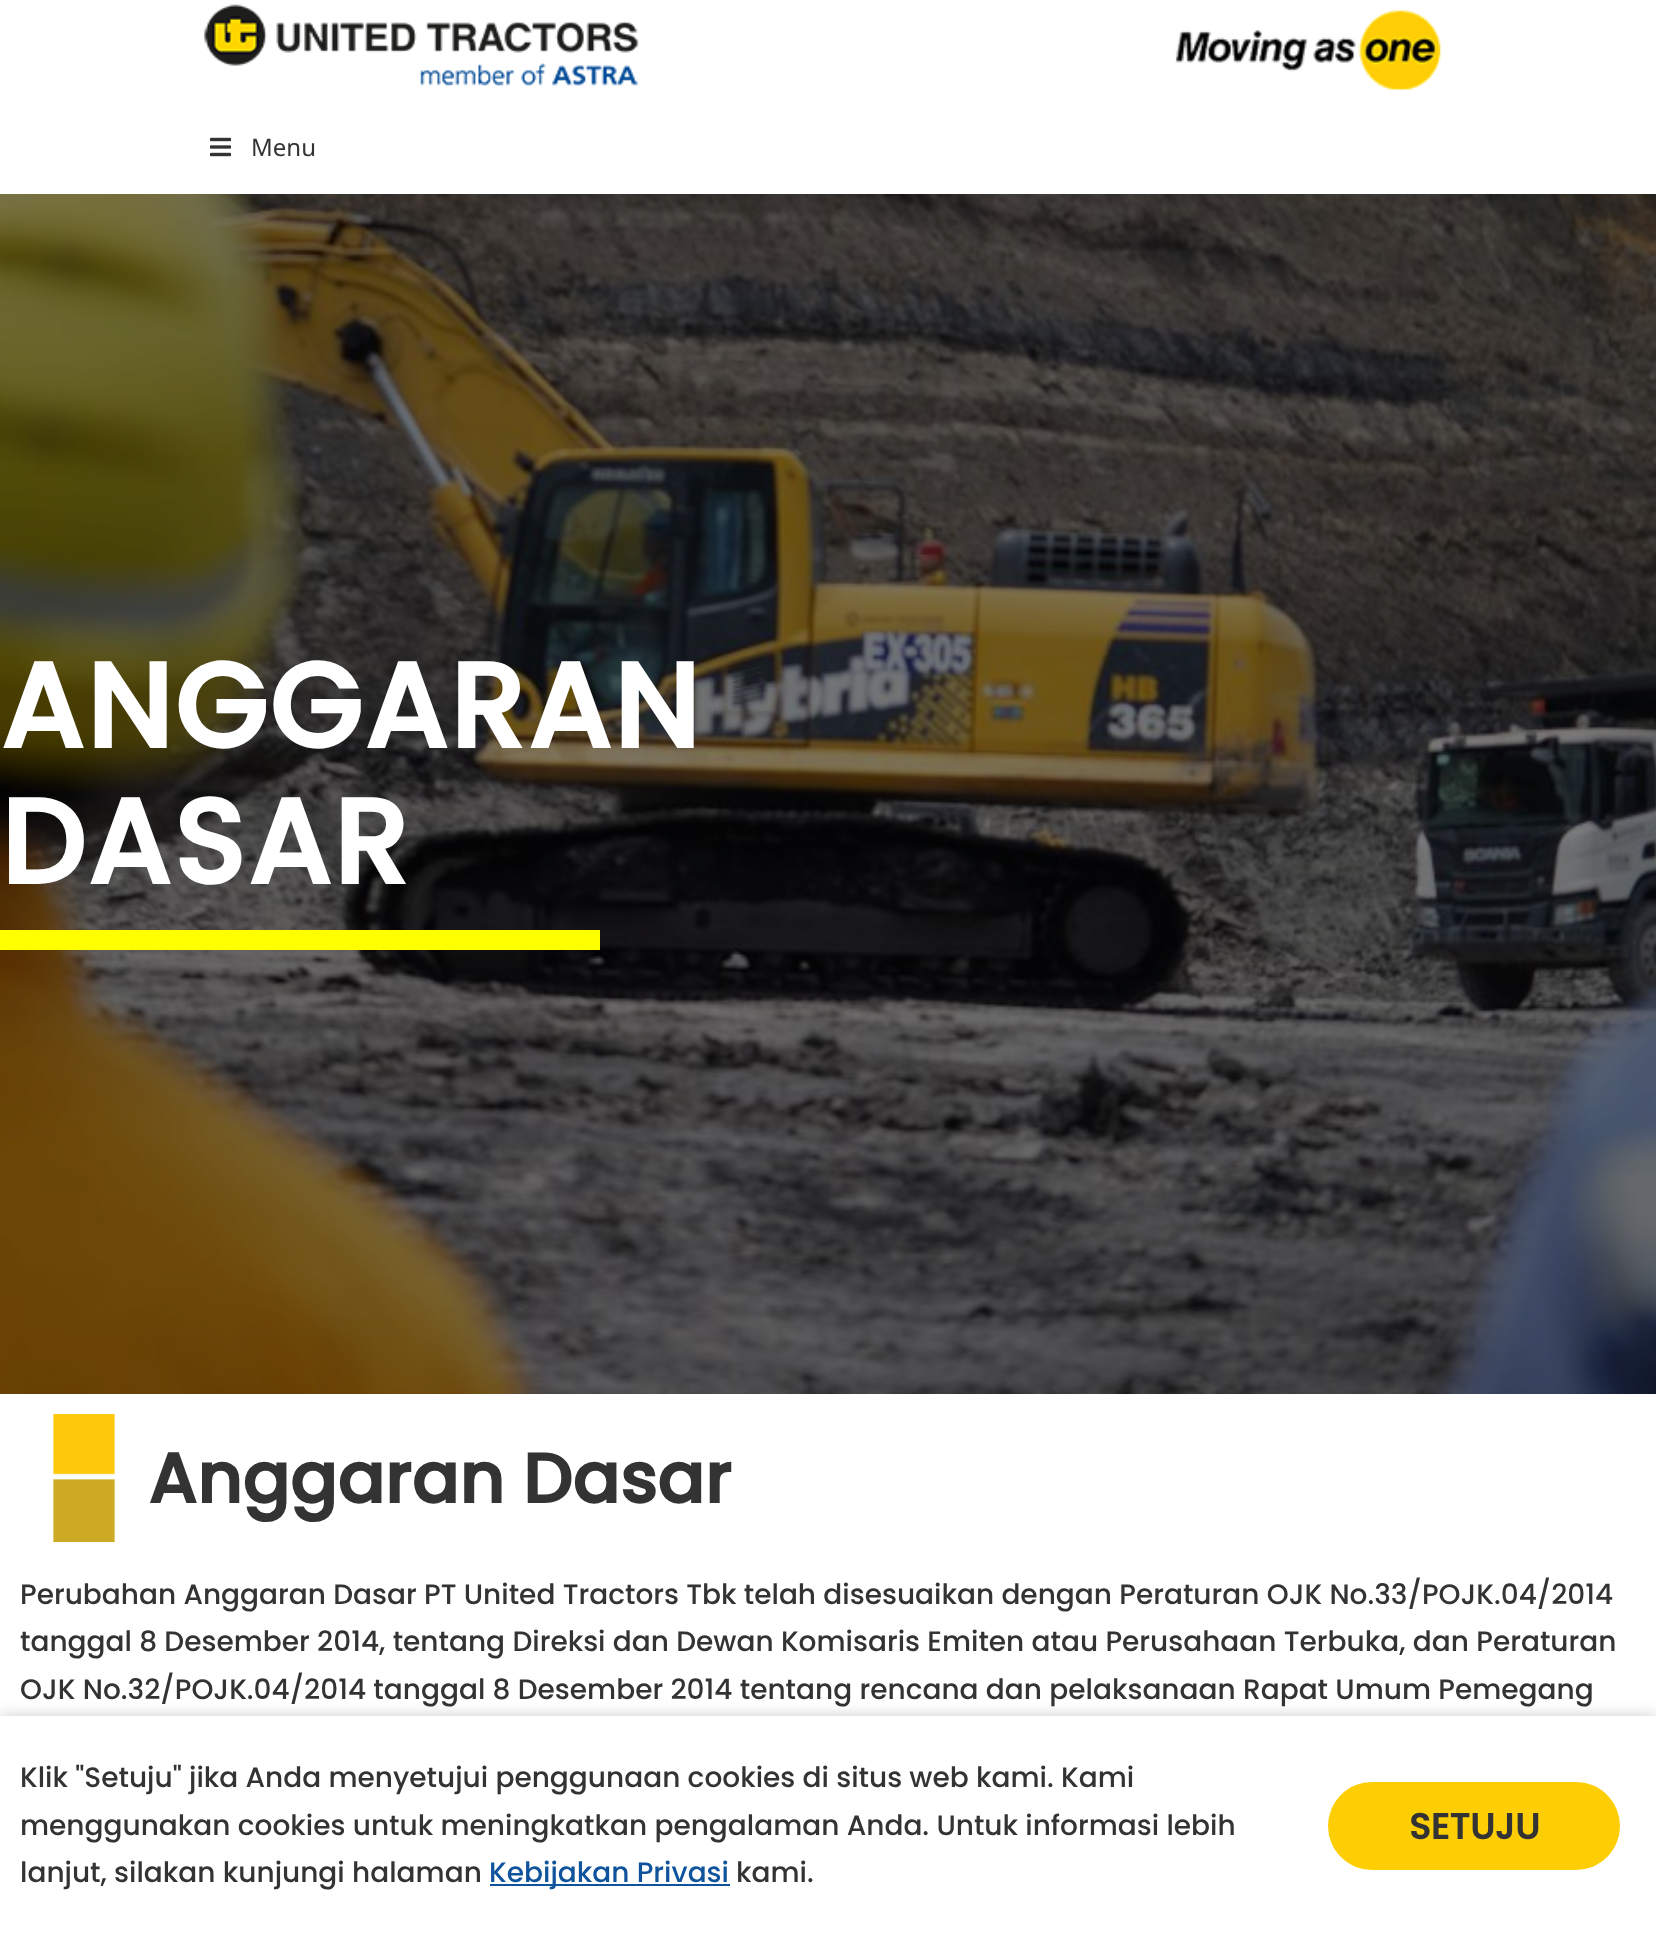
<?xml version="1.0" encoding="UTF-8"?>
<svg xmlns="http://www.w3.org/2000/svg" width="1656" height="1938">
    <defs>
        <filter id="blur1" x="-50%" y="-200%" width="200%" height="500%"><feGaussianBlur stdDeviation="7.5"/></filter>
    </defs>
    <rect width="100%" height="100%" fill="#FFFFFF"/>
    <image x="203" y="4" width="436" height="82" href="img_01.png"/>
    <image x="1175" y="10" width="266" height="80" href="img_02.png"/>
    <image x="210" y="137" width="21" height="20" href="img_03.png"/>
    <text x="251" y="156" font-family="Noto Sans" font-size="24" fill="#333333">Menu</text>
    <image x="0" y="194" width="1656" height="1200" href="img_04.png"/>
    <text font-family="Poppins" font-size="120" font-weight="700" letter-spacing="2" fill="#FFFFFF">
        <tspan x="0" y="748">ANGGARAN</tspan>
        <tspan x="0" y="884">DASAR</tspan>
    </text>
    <rect x="0" y="930" width="600" height="20" fill="#FFFF00"/>
    <image x="53" y="1414" width="62" height="128" href="img_05.png"/>
    <text x="148" y="1503" font-family="Poppins" font-size="70" font-weight="700" fill="#333333">Anggaran Dasar</text>
    <text font-family="Poppins" font-size="28" font-weight="500" fill="#333333">
        <tspan x="20" y="1604">Perubahan Anggaran Dasar PT United Tractors Tbk telah disesuaikan dengan Peraturan OJK No.33/POJK.04/2014</tspan>
        <tspan x="20" y="1651">tanggal 8 Desember 2014, tentang Direksi dan Dewan Komisaris Emiten atau Perusahaan Terbuka, dan Peraturan</tspan>
        <tspan x="20" y="1699">OJK No.32/POJK.04/2014 tanggal 8 Desember 2014 tentang rencana dan pelaksanaan Rapat Umum Pemegang</tspan>
    </text>
    <rect x="0" y="1716" width="1656" height="222" fill="#000000" fill-opacity="0.2" filter="url(#blur1)"/>
    <rect x="0" y="1716" width="1656" height="222" fill="#FFFFFF"/>
    <text font-family="Poppins" font-size="28" font-weight="500" fill="#333333">
        <tspan x="20" y="1787">Klik "Setuju" jika Anda menyetujui penggunaan cookies di situs web kami. Kami</tspan>
        <tspan x="20" y="1835">menggunakan cookies untuk meningkatkan pengalaman Anda. Untuk informasi lebih</tspan>
        <tspan x="20" y="1882">lanjut, silakan kunjungi halaman</tspan>
    </text>
    <rect x="490" y="1884" width="240" height="2" fill="#0E539B"/>
    <text x="489" y="1882" font-family="Poppins" font-size="28" font-weight="500" fill="#0E539B">Kebijakan Privasi</text>
    <text x="736" y="1882" font-family="Poppins" font-size="28" font-weight="500" fill="#333333">kami.</text>
    <rect x="1328" y="1782" width="292" height="88" rx="44" fill="#FECE04"/>
    <text x="1409" y="1839" font-family="Poppins" font-size="36" font-weight="700" fill="#333333">SETUJU</text>
</svg>
